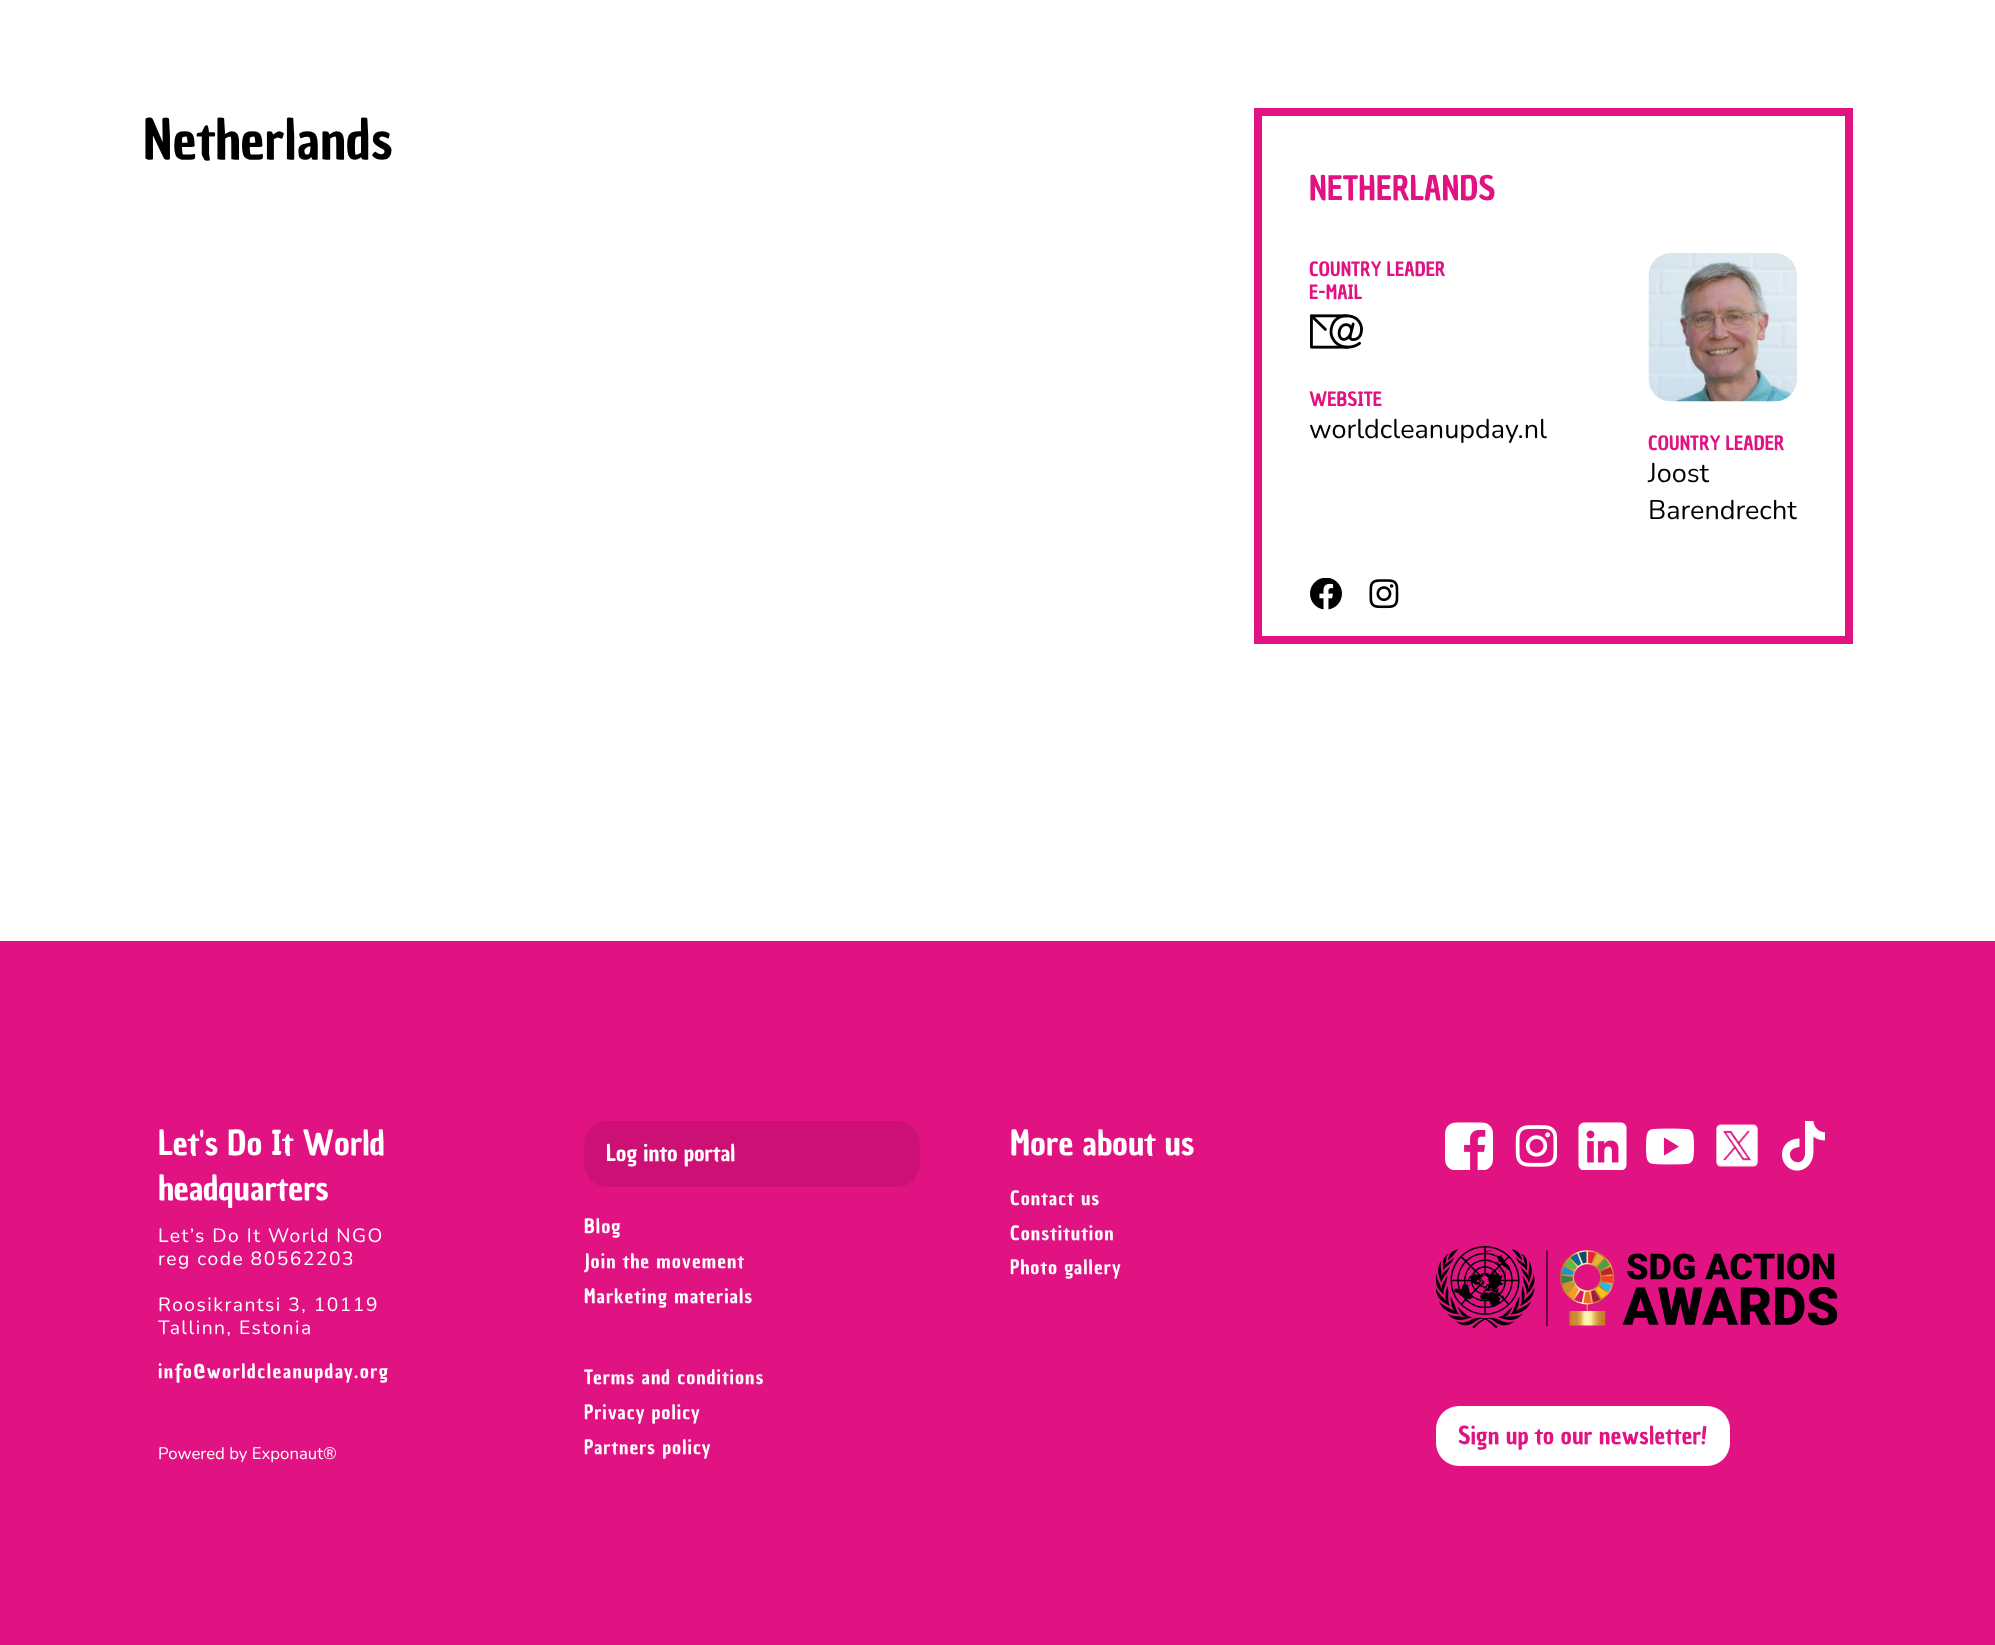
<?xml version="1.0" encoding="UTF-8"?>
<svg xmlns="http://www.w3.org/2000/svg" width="1995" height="1645">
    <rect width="100%" height="100%" fill="#FFFFFF"/>
    <text x="143" y="159" font-family="Chau Philomene One" font-size="54" fill="#000000">Netherlands</text>
    <rect x="1258" y="112" width="591" height="528" fill="none" stroke="#E11383" stroke-width="8"/>
    <text x="1309" y="200" font-family="Chau Philomene One" font-size="33" fill="#E11383">NETHERLANDS</text>
    <text font-family="Chau Philomene One" font-size="19.25" fill="#E11383">
        <tspan x="1309" y="276">COUNTRY LEADER</tspan>
        <tspan x="1309" y="299">E-MAIL</tspan>
    </text>
    <image x="1310" y="314" width="53" height="35" href="img_01.png"/>
    <text x="1309" y="406" font-family="Chau Philomene One" font-size="19.25" fill="#E11383">WEBSITE</text>
    <text x="1309" y="438" font-family="Nunito" font-size="27" fill="#000000">worldcleanupday.nl</text>
    <image x="1648" y="253" width="149" height="149" href="img_02.png"/>
    <text x="1648" y="450" font-family="Chau Philomene One" font-size="19.25" fill="#E11383">COUNTRY LEADER</text>
    <text font-family="Nunito" font-size="27" fill="#000000">
        <tspan x="1648" y="482">Joost</tspan>
        <tspan x="1648" y="519">Barendrecht</tspan>
    </text>
    <image x="1310" y="578" width="32" height="32" href="img_03.png"/>
    <image x="1369" y="579" width="30" height="30" href="img_04.png"/>
    <rect x="0" y="941" width="1995" height="704" fill="#E11383"/>
    <text font-family="Chau Philomene One" font-size="33.5" fill="#FFFFFF">
        <tspan x="158" y="1155">Let's Do It World</tspan>
        <tspan x="158" y="1200">headquarters</tspan>
    </text>
    <text font-family="Nunito" font-size="19.25" letter-spacing="1.5" fill="#FFFFFF">
        <tspan x="158" y="1242">Let’s Do It World NGO</tspan>
        <tspan x="158" y="1265">reg code 80562203</tspan>
    </text>
    <text font-family="Nunito" font-size="19.25" letter-spacing="1.5" fill="#FFFFFF">
        <tspan x="158" y="1311">Roosikrantsi 3, 10119</tspan>
        <tspan x="158" y="1334">Tallinn, Estonia</tspan>
    </text>
    <text x="158" y="1378" font-family="Chau Philomene One" font-size="19.25" letter-spacing="1.5" fill="#FFFFFF">info@worldcleanupday.org</text>
    <text x="158" y="1459" font-family="Nunito" font-size="16.75" fill="#FFFFFF">Powered by Exponaut®</text>
    <rect x="584" y="1121" width="336" height="66" rx="23" fill="#CC1076"/>
    <text x="606" y="1161" font-family="Chau Philomene One" font-size="22.5" fill="#FFFFFF">Log into portal</text>
    <text font-family="Chau Philomene One" font-size="19.25" letter-spacing="1.05" fill="#FFFFFF">
        <tspan x="584" y="1233">Blog</tspan>
        <tspan x="584" y="1268">Join the movement</tspan>
        <tspan x="584" y="1303">Marketing materials</tspan>
    </text>
    <text font-family="Chau Philomene One" font-size="19.25" letter-spacing="1.05" fill="#FFFFFF">
        <tspan x="584" y="1384">Terms and conditions</tspan>
        <tspan x="584" y="1419">Privacy policy</tspan>
        <tspan x="584" y="1454">Partners policy</tspan>
    </text>
    <text x="1010" y="1155" font-family="Chau Philomene One" font-size="33.5" fill="#FFFFFF">More about us</text>
    <text font-family="Chau Philomene One" font-size="19.25" letter-spacing="1.05" fill="#FFFFFF">
        <tspan x="1010" y="1205">Contact us</tspan>
        <tspan x="1010" y="1240">Constitution</tspan>
        <tspan x="1010" y="1274">Photo gallery</tspan>
    </text>
    <image x="1445" y="1122" width="49" height="48" href="img_05.png"/>
    <image x="1515" y="1125" width="42" height="42" href="img_06.png"/>
    <image x="1578" y="1122" width="49" height="48" href="img_07.png"/>
    <image x="1646" y="1128" width="48" height="37" href="img_08.png"/>
    <image x="1716" y="1124" width="42" height="43" href="img_09.png"/>
    <image x="1782" y="1121" width="43" height="50" href="img_10.png"/>
    <image x="1436" y="1246" width="402" height="83" href="img_11.png"/>
    <rect x="1436" y="1406" width="294" height="60" rx="23" fill="#FFFFFF"/>
    <text x="1458" y="1444" font-family="Chau Philomene One" font-size="24" fill="#E11383">Sign up to our newsletter!</text>
</svg>
